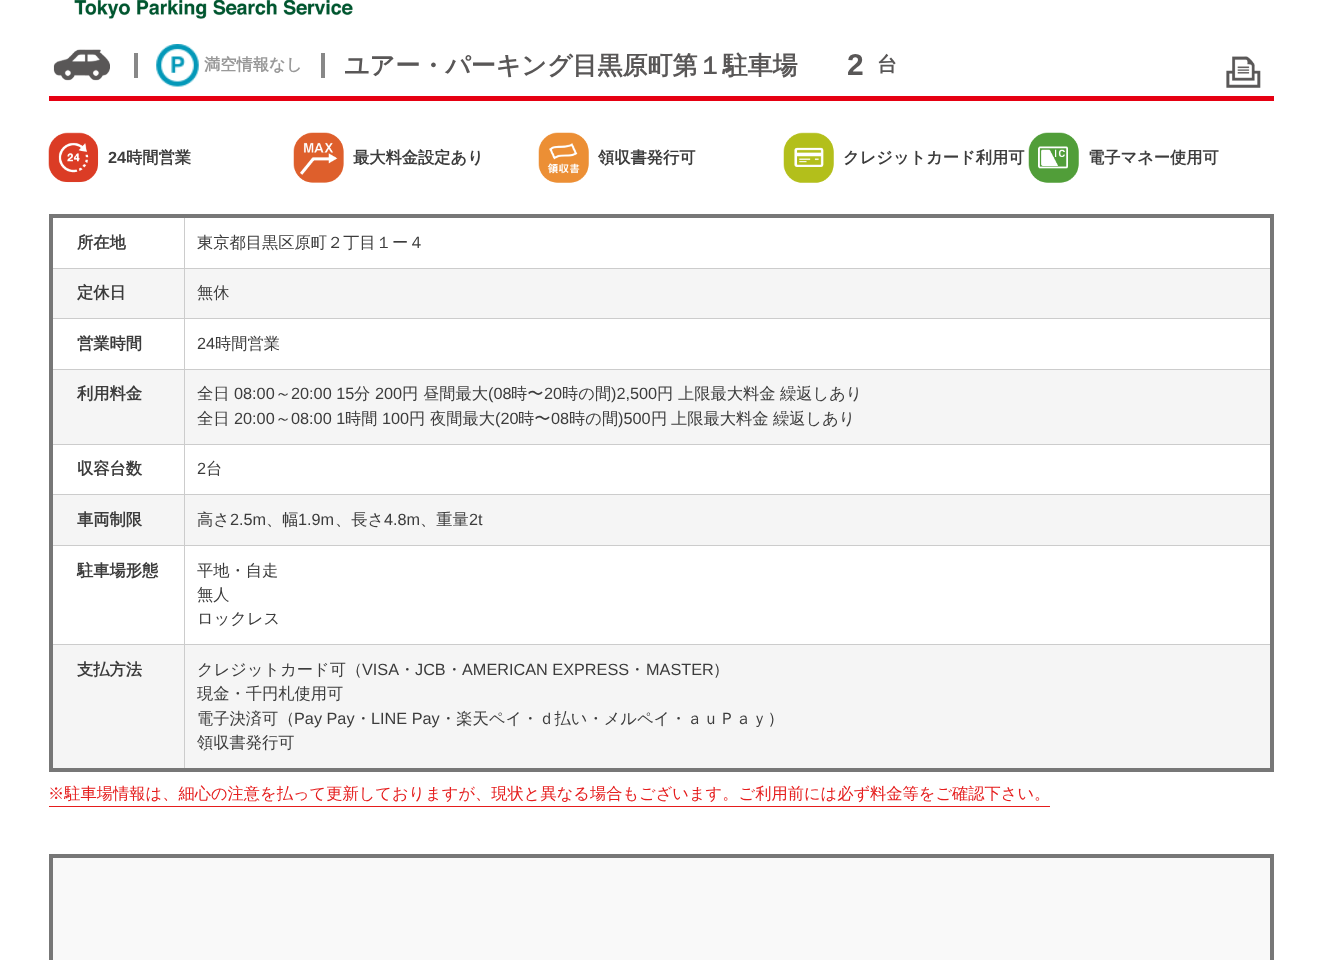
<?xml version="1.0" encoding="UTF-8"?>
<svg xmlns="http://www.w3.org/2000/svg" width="1321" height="960">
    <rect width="100%" height="100%" fill="#FFFFFF"/>
    <image x="74" y="0" width="279" height="19" href="img_01.png"/>
    <rect x="49" y="96" width="1225" height="5" fill="#E60012"/>
    <image x="53" y="49" width="57" height="32" href="img_02.png"/>
    <rect x="134" y="53" width="4" height="25" fill="#888888"/>
    <image x="156" y="44" width="43" height="43" href="img_03.png"/>
    <text x="204" y="70" font-family="WenQuanYi Zen Hei" font-size="16.25" font-weight="700" fill="#999999">満空情報なし</text>
    <rect x="321" y="53" width="4" height="25" fill="#888888"/>
    <text x="344" y="74" font-family="WenQuanYi Zen Hei" font-size="25" font-weight="700" fill="#595757">ユアー・パーキング目黒原町第１駐車場</text>
    <text x="847" y="75" font-family="Liberation Sans" font-size="30" font-weight="700" fill="#595757">2</text>
    <text x="877" y="71" font-family="WenQuanYi Zen Hei" font-size="20" font-weight="700" fill="#595757">台</text>
    <image x="1226" y="56" width="35" height="32" href="img_04.png"/>
    <image x="48" y="132" width="51" height="51" href="img_05.png"/>
    <text x="108" y="163" font-family="Liberation Sans" font-size="16.25" font-weight="700" fill="#3C3C3C">24</text>
    <text x="126" y="163" font-family="WenQuanYi Zen Hei" font-size="16.25" font-weight="700" fill="#3C3C3C">時間営業</text>
    <image x="293" y="132" width="51" height="51" href="img_06.png"/>
    <text x="353" y="163" font-family="WenQuanYi Zen Hei" font-size="16.25" font-weight="700" fill="#3C3C3C">最大料金設定あり</text>
    <image x="538" y="132" width="51" height="51" href="img_07.png"/>
    <text x="598" y="163" font-family="WenQuanYi Zen Hei" font-size="16.25" font-weight="700" fill="#3C3C3C">領収書発行可</text>
    <image x="783" y="132" width="51" height="51" href="img_08.png"/>
    <text x="843" y="163" font-family="WenQuanYi Zen Hei" font-size="16.25" font-weight="700" fill="#3C3C3C">クレジットカード利用可</text>
    <image x="1028" y="132" width="51" height="51" href="img_09.png"/>
    <text x="1088" y="163" font-family="WenQuanYi Zen Hei" font-size="16.25" font-weight="700" fill="#3C3C3C">電子マネー使用可</text>
    <rect x="184" y="268" width="1089" height="1" fill="#CCCCCC"/>
    <rect x="53" y="269" width="1217" height="49" fill="#F5F5F5"/>
    <rect x="184" y="318" width="1089" height="1" fill="#CCCCCC"/>
    <rect x="184" y="369" width="1089" height="1" fill="#CCCCCC"/>
    <rect x="53" y="370" width="1217" height="74" fill="#F5F5F5"/>
    <rect x="184" y="444" width="1089" height="1" fill="#CCCCCC"/>
    <rect x="184" y="494" width="1089" height="1" fill="#CCCCCC"/>
    <rect x="53" y="495" width="1217" height="50" fill="#F5F5F5"/>
    <rect x="184" y="545" width="1089" height="1" fill="#CCCCCC"/>
    <rect x="184" y="644" width="1089" height="1" fill="#CCCCCC"/>
    <rect x="53" y="645" width="1217" height="123" fill="#F5F5F5"/>
    <rect x="184" y="644" width="1" height="126" fill="#CCCCCC"/>
    <rect x="50" y="644" width="135" height="1" fill="#CCCCCC"/>
    <rect x="184" y="545" width="1" height="100" fill="#CCCCCC"/>
    <rect x="50" y="545" width="135" height="1" fill="#CCCCCC"/>
    <rect x="184" y="494" width="1" height="52" fill="#CCCCCC"/>
    <rect x="50" y="494" width="135" height="1" fill="#CCCCCC"/>
    <rect x="184" y="444" width="1" height="51" fill="#CCCCCC"/>
    <rect x="50" y="444" width="135" height="1" fill="#CCCCCC"/>
    <rect x="184" y="369" width="1" height="76" fill="#CCCCCC"/>
    <rect x="50" y="369" width="135" height="1" fill="#CCCCCC"/>
    <rect x="184" y="318" width="1" height="52" fill="#CCCCCC"/>
    <rect x="50" y="318" width="135" height="1" fill="#CCCCCC"/>
    <rect x="184" y="268" width="1" height="51" fill="#CCCCCC"/>
    <rect x="50" y="268" width="135" height="1" fill="#CCCCCC"/>
    <rect x="184" y="215" width="1" height="54" fill="#CCCCCC"/>
    <rect x="49" y="214" width="1225" height="4" fill="#777777"/>
    <rect x="1270" y="214" width="4" height="557" fill="#777777"/>
    <rect x="49" y="768" width="1225" height="4" fill="#777777"/>
    <rect x="49" y="214" width="4" height="557" fill="#777777"/>
    <text x="77" y="248" font-family="WenQuanYi Zen Hei" font-size="16.25" font-weight="700" fill="#3C3C3C">所在地</text>
    <text x="197" y="248" font-family="WenQuanYi Zen Hei" font-size="16.25" font-weight="500" fill="#3C3C3C">東京都目黒区原町２丁目１ー４</text>
    <text x="77" y="298" font-family="WenQuanYi Zen Hei" font-size="16.25" font-weight="700" fill="#3C3C3C">定休日</text>
    <text x="197" y="298" font-family="WenQuanYi Zen Hei" font-size="16.25" font-weight="500" fill="#3C3C3C">無休</text>
    <text x="77" y="349" font-family="WenQuanYi Zen Hei" font-size="16.25" font-weight="700" fill="#3C3C3C">営業時間</text>
    <text x="197" y="349" font-family="Liberation Sans" font-size="16.25" fill="#3C3C3C">24</text>
    <text x="215" y="349" font-family="WenQuanYi Zen Hei" font-size="16.25" font-weight="500" fill="#3C3C3C">時間営業</text>
    <text x="77" y="399" font-family="WenQuanYi Zen Hei" font-size="16.25" font-weight="700" fill="#3C3C3C">利用料金</text>
    <text x="197" y="399" font-family="WenQuanYi Zen Hei" font-size="16.25" font-weight="500" fill="#3C3C3C">全日</text>
    <text x="234" y="399" font-family="Liberation Sans" font-size="16.25" fill="#3C3C3C">08:00</text>
    <text x="275" y="399" font-family="WenQuanYi Zen Hei" font-size="16.25" font-weight="500" fill="#3C3C3C">～</text>
    <text x="291" y="399" font-family="Liberation Sans" font-size="16.25" fill="#3C3C3C">20:00 15</text>
    <text x="354" y="399" font-family="WenQuanYi Zen Hei" font-size="16.25" font-weight="500" fill="#3C3C3C">分</text>
    <text x="375" y="399" font-family="Liberation Sans" font-size="16.25" fill="#3C3C3C">200</text>
    <text x="402" y="399" font-family="WenQuanYi Zen Hei" font-size="16.25" font-weight="500" fill="#3C3C3C">円</text>
    <text x="423" y="399" font-family="WenQuanYi Zen Hei" font-size="16.25" font-weight="500" fill="#3C3C3C">昼間最大</text>
    <text x="488" y="399" font-family="Liberation Sans" font-size="16.25" fill="#3C3C3C">(08</text>
    <text x="511" y="399" font-family="WenQuanYi Zen Hei" font-size="16.25" font-weight="500" fill="#3C3C3C">時〜</text>
    <text x="544" y="399" font-family="Liberation Sans" font-size="16.25" fill="#3C3C3C">20</text>
    <text x="562" y="399" font-family="WenQuanYi Zen Hei" font-size="16.25" font-weight="500" fill="#3C3C3C">時の間</text>
    <text x="611" y="399" font-family="Liberation Sans" font-size="16.25" fill="#3C3C3C">)2,500</text>
    <text x="657" y="399" font-family="WenQuanYi Zen Hei" font-size="16.25" font-weight="500" fill="#3C3C3C">円</text>
    <text x="678" y="399" font-family="WenQuanYi Zen Hei" font-size="16.25" font-weight="500" fill="#3C3C3C">上限最大料金</text>
    <text x="780" y="399" font-family="WenQuanYi Zen Hei" font-size="16.25" font-weight="500" fill="#3C3C3C">繰返しあり</text>
    <text x="197" y="424" font-family="WenQuanYi Zen Hei" font-size="16.25" font-weight="500" fill="#3C3C3C">全日</text>
    <text x="234" y="424" font-family="Liberation Sans" font-size="16.25" fill="#3C3C3C">20:00</text>
    <text x="275" y="424" font-family="WenQuanYi Zen Hei" font-size="16.25" font-weight="500" fill="#3C3C3C">～</text>
    <text x="291" y="424" font-family="Liberation Sans" font-size="16.25" fill="#3C3C3C">08:00 1</text>
    <text x="345" y="424" font-family="WenQuanYi Zen Hei" font-size="16.25" font-weight="500" fill="#3C3C3C">時間</text>
    <text x="382" y="424" font-family="Liberation Sans" font-size="16.25" fill="#3C3C3C">100</text>
    <text x="409" y="424" font-family="WenQuanYi Zen Hei" font-size="16.25" font-weight="500" fill="#3C3C3C">円</text>
    <text x="430" y="424" font-family="WenQuanYi Zen Hei" font-size="16.25" font-weight="500" fill="#3C3C3C">夜間最大</text>
    <text x="495" y="424" font-family="Liberation Sans" font-size="16.25" fill="#3C3C3C">(20</text>
    <text x="518" y="424" font-family="WenQuanYi Zen Hei" font-size="16.25" font-weight="500" fill="#3C3C3C">時〜</text>
    <text x="551" y="424" font-family="Liberation Sans" font-size="16.25" fill="#3C3C3C">08</text>
    <text x="569" y="424" font-family="WenQuanYi Zen Hei" font-size="16.25" font-weight="500" fill="#3C3C3C">時の間</text>
    <text x="618" y="424" font-family="Liberation Sans" font-size="16.25" fill="#3C3C3C">)500</text>
    <text x="651" y="424" font-family="WenQuanYi Zen Hei" font-size="16.25" font-weight="500" fill="#3C3C3C">円</text>
    <text x="671" y="424" font-family="WenQuanYi Zen Hei" font-size="16.25" font-weight="500" fill="#3C3C3C">上限最大料金</text>
    <text x="773" y="424" font-family="WenQuanYi Zen Hei" font-size="16.25" font-weight="500" fill="#3C3C3C">繰返しあり</text>
    <text x="77" y="474" font-family="WenQuanYi Zen Hei" font-size="16.25" font-weight="700" fill="#3C3C3C">収容台数</text>
    <text x="197" y="474" font-family="Liberation Sans" font-size="16.25" fill="#3C3C3C">2</text>
    <text x="206" y="474" font-family="WenQuanYi Zen Hei" font-size="16.25" font-weight="500" fill="#3C3C3C">台</text>
    <text x="77" y="525" font-family="WenQuanYi Zen Hei" font-size="16.25" font-weight="700" fill="#3C3C3C">車両制限</text>
    <text x="197" y="525" font-family="WenQuanYi Zen Hei" font-size="16.25" font-weight="500" fill="#3C3C3C">高さ</text>
    <text x="230" y="525" font-family="Liberation Sans" font-size="16.25" fill="#3C3C3C">2.5m</text>
    <text x="266" y="525" font-family="WenQuanYi Zen Hei" font-size="16.25" font-weight="500" fill="#3C3C3C">、幅</text>
    <text x="298" y="525" font-family="Liberation Sans" font-size="16.25" fill="#3C3C3C">1.9m</text>
    <text x="335" y="525" font-family="WenQuanYi Zen Hei" font-size="16.25" font-weight="500" fill="#3C3C3C">、長さ</text>
    <text x="384" y="525" font-family="Liberation Sans" font-size="16.25" fill="#3C3C3C">4.8m</text>
    <text x="420" y="525" font-family="WenQuanYi Zen Hei" font-size="16.25" font-weight="500" fill="#3C3C3C">、重量</text>
    <text x="469" y="525" font-family="Liberation Sans" font-size="16.25" fill="#3C3C3C">2t</text>
    <text x="77" y="576" font-family="WenQuanYi Zen Hei" font-size="16.25" font-weight="700" fill="#3C3C3C">駐車場形態</text>
    <text font-family="WenQuanYi Zen Hei" font-size="16.25" font-weight="500" fill="#3C3C3C">
        <tspan x="197" y="576">平地・自走</tspan>
        <tspan x="197" y="600">無人</tspan>
        <tspan x="197" y="624">ロックレス</tspan>
    </text>
    <text x="77" y="675" font-family="WenQuanYi Zen Hei" font-size="16.25" font-weight="700" fill="#3C3C3C">支払方法</text>
    <text x="197" y="675" font-family="WenQuanYi Zen Hei" font-size="16.25" font-weight="500" fill="#3C3C3C">クレジットカード可（</text>
    <text x="362" y="675" font-family="Liberation Sans" font-size="16.25" fill="#3C3C3C">VISA</text>
    <text x="399" y="675" font-family="WenQuanYi Zen Hei" font-size="16.25" font-weight="500" fill="#3C3C3C">・</text>
    <text x="415" y="675" font-family="Liberation Sans" font-size="16.25" fill="#3C3C3C">JCB</text>
    <text x="446" y="675" font-family="WenQuanYi Zen Hei" font-size="16.25" font-weight="500" fill="#3C3C3C">・</text>
    <text x="462" y="675" font-family="Liberation Sans" font-size="16.25" fill="#3C3C3C">AMERICAN EXPRESS</text>
    <text x="629" y="675" font-family="WenQuanYi Zen Hei" font-size="16.25" font-weight="500" fill="#3C3C3C">・</text>
    <text x="646" y="675" font-family="Liberation Sans" font-size="16.25" fill="#3C3C3C">MASTER</text>
    <text x="713" y="675" font-family="WenQuanYi Zen Hei" font-size="16.25" font-weight="500" fill="#3C3C3C">）</text>
    <text font-family="WenQuanYi Zen Hei" font-size="16.25" font-weight="500" fill="#3C3C3C">
        <tspan x="197" y="699">現金・千円札使用可</tspan>
        <tspan x="197" y="724">電子決済可（</tspan>
    </text>
    <text x="294" y="724" font-family="Liberation Sans" font-size="16.25" fill="#3C3C3C">Pay Pay</text>
    <text x="355" y="724" font-family="WenQuanYi Zen Hei" font-size="16.25" font-weight="500" fill="#3C3C3C">・</text>
    <text x="371" y="724" font-family="Liberation Sans" font-size="16.25" fill="#3C3C3C">LINE Pay</text>
    <text x="440" y="724" font-family="WenQuanYi Zen Hei" font-size="16.25" font-weight="500" fill="#3C3C3C">・楽天ペイ・ｄ払い・メルペイ・ａｕＰａｙ）</text>
    <text x="197" y="748" font-family="WenQuanYi Zen Hei" font-size="16.25" font-weight="500" fill="#3C3C3C">領収書発行可</text>
    <text x="48" y="799" font-family="WenQuanYi Zen Hei" font-size="16.25" font-weight="500" fill="#E51D1D">※駐車場情報は、細心の注意を払って更新しておりますが、現状と異なる場合もございます。ご利用前には必ず料金等をご確認下さい。</text>
    <rect x="49" y="806" width="1001" height="1" fill="#E51D1D"/>
    <rect x="51" y="856" width="1221" height="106" fill="none" stroke="#777777" stroke-width="4"/>
    <rect x="53" y="858" width="1217" height="102" fill="#F9F9F9"/>
</svg>
